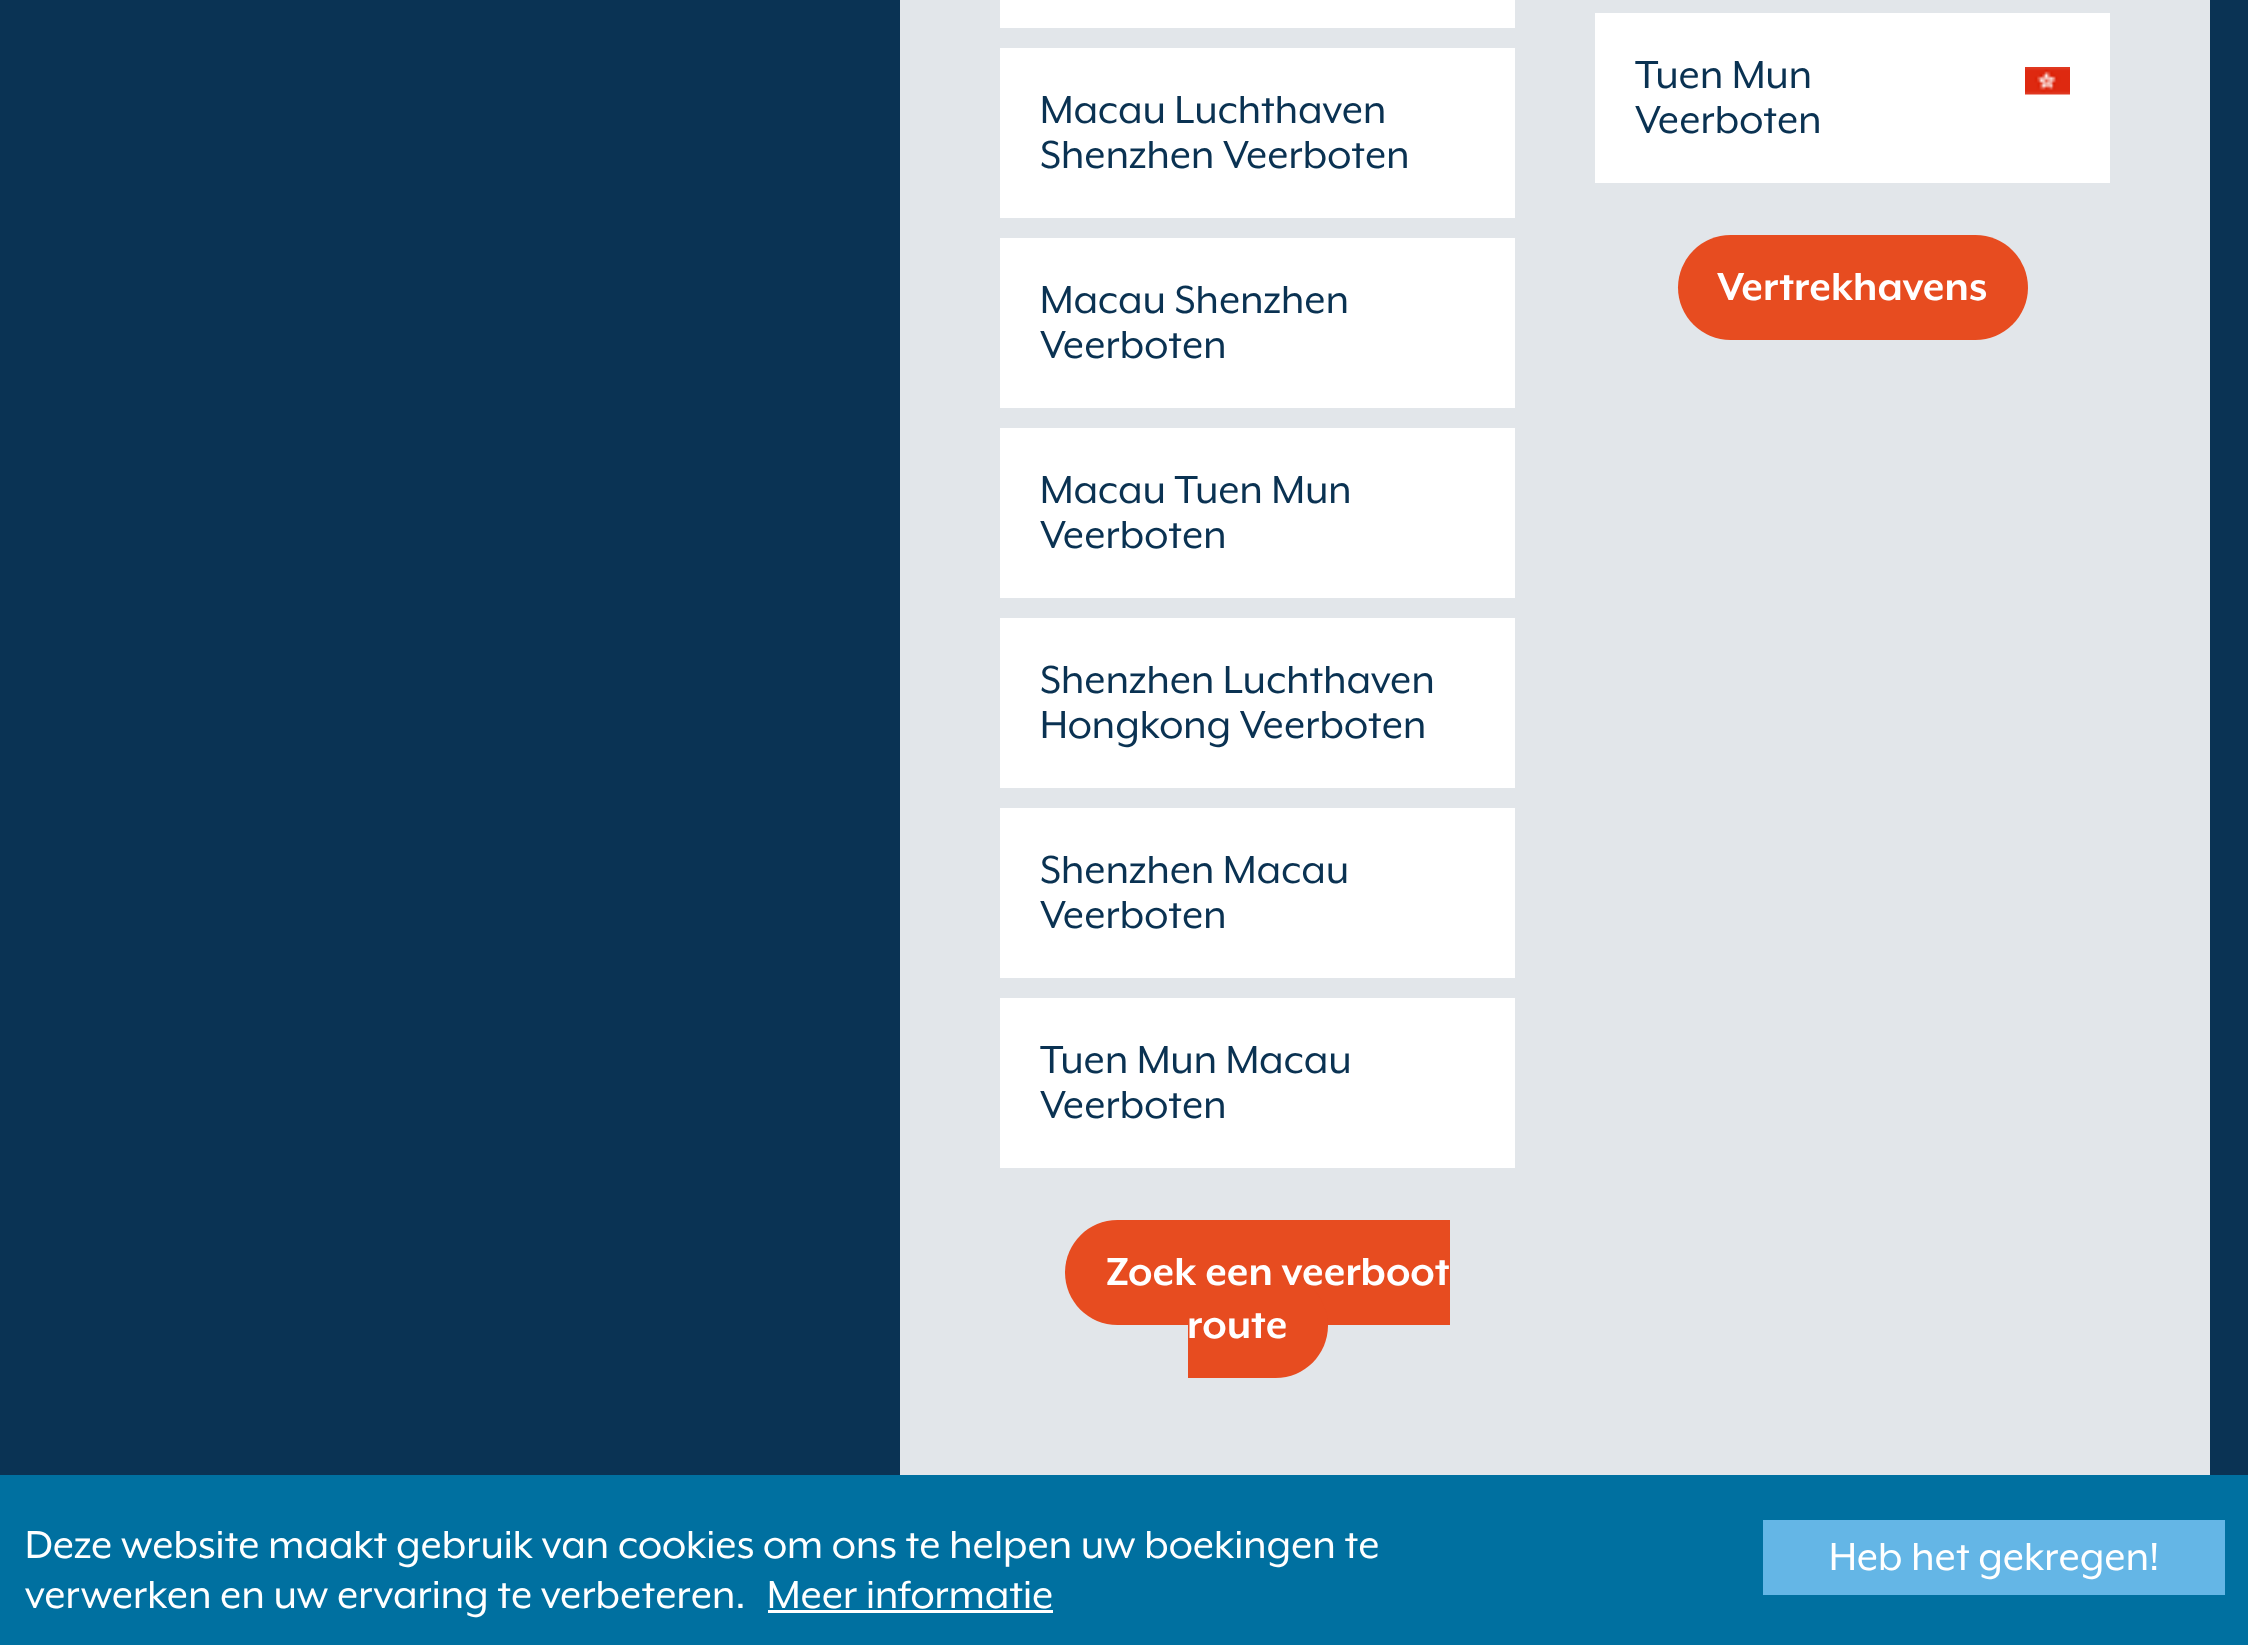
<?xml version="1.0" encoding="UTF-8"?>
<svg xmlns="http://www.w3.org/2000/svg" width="2248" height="1645">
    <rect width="100%" height="100%" fill="#0A3354"/>
    <rect x="900" y="0" width="1310" height="1475" fill="#E2E6EA"/>
    <rect x="1000" y="0" width="515" height="28" fill="#FFFFFF"/>
    <rect x="1000" y="48" width="515" height="170" fill="#FFFFFF"/>
    <text font-family="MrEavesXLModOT" font-size="45" fill="#0A3252">
        <tspan x="1040" y="123">Macau Luchthaven</tspan>
        <tspan x="1040" y="168">Shenzhen Veerboten</tspan>
    </text>
    <rect x="1000" y="238" width="515" height="170" fill="#FFFFFF"/>
    <text font-family="MrEavesXLModOT" font-size="45" fill="#0A3252">
        <tspan x="1040" y="313">Macau Shenzhen</tspan>
        <tspan x="1040" y="358">Veerboten</tspan>
    </text>
    <rect x="1000" y="428" width="515" height="170" fill="#FFFFFF"/>
    <text font-family="MrEavesXLModOT" font-size="45" fill="#0A3252">
        <tspan x="1040" y="503">Macau Tuen Mun</tspan>
        <tspan x="1040" y="548">Veerboten</tspan>
    </text>
    <rect x="1000" y="618" width="515" height="170" fill="#FFFFFF"/>
    <text font-family="MrEavesXLModOT" font-size="45" fill="#0A3252">
        <tspan x="1040" y="693">Shenzhen Luchthaven</tspan>
        <tspan x="1040" y="738">Hongkong Veerboten</tspan>
    </text>
    <rect x="1000" y="808" width="515" height="170" fill="#FFFFFF"/>
    <text font-family="MrEavesXLModOT" font-size="45" fill="#0A3252">
        <tspan x="1040" y="883">Shenzhen Macau</tspan>
        <tspan x="1040" y="928">Veerboten</tspan>
    </text>
    <rect x="1000" y="998" width="515" height="170" fill="#FFFFFF"/>
    <text font-family="MrEavesXLModOT" font-size="45" fill="#0A3252">
        <tspan x="1040" y="1073">Tuen Mun Macau</tspan>
        <tspan x="1040" y="1118">Veerboten</tspan>
    </text>
    <path d="M 1117.5 1220 H 1450 V 1325 H 1117.5 C 1088.5 1325 1065 1301.5 1065 1272.5 C 1065 1243.5 1088.5 1220 1117.5 1220 Z" fill="#E74C20"/>
    <path d="M 1188 1273 H 1275.5 C 1304.5 1273 1328 1296.5 1328 1325.5 C 1328 1354.5 1304.5 1378 1275.5 1378 H 1188 Z" fill="#E74C20"/>
    <text x="1106" y="1285" font-family="MrEavesXLModOT" font-size="45" font-weight="700" fill="#FFFFFF">Zoek een veerboot</text>
    <text x="1187" y="1338" font-family="MrEavesXLModOT" font-size="45" font-weight="700" fill="#FFFFFF">route</text>
    <rect x="1595" y="13" width="515" height="170" fill="#FFFFFF"/>
    <text font-family="MrEavesXLModOT" font-size="45" fill="#0A3252">
        <tspan x="1635" y="88">Tuen Mun</tspan>
        <tspan x="1635" y="133">Veerboten</tspan>
    </text>
    <image x="2025" y="67" width="45" height="28" href="img_01.png"/>
    <rect x="1678" y="235" width="350" height="105" rx="52.5" fill="#E74C20"/>
    <text x="1717" y="300" font-family="MrEavesXLModOT" font-size="45" font-weight="700" fill="#FFFFFF">Vertrekhavens</text>
    <rect x="0" y="1475" width="2248" height="170" fill="#0070A0"/>
    <text font-family="MrEavesXLModOT" font-size="45" fill="#FFFFFF">
        <tspan x="25" y="1558">Deze website maakt gebruik van cookies om ons te helpen uw boekingen te</tspan>
        <tspan x="25" y="1608">verwerken en uw ervaring te verbeteren.</tspan>
    </text>
    <text x="767" y="1608" font-family="MrEavesXLModOT" font-size="45" fill="#FFFFFF">Meer informatie</text>
    <rect x="768" y="1610" width="285" height="3" fill="#FFFFFF"/>
    <rect x="1763" y="1520" width="462" height="75" fill="#64B6E6"/>
    <text x="1829" y="1570" font-family="MrEavesXLModOT" font-size="45" fill="#FFFFFF">Heb het gekregen!</text>
</svg>
